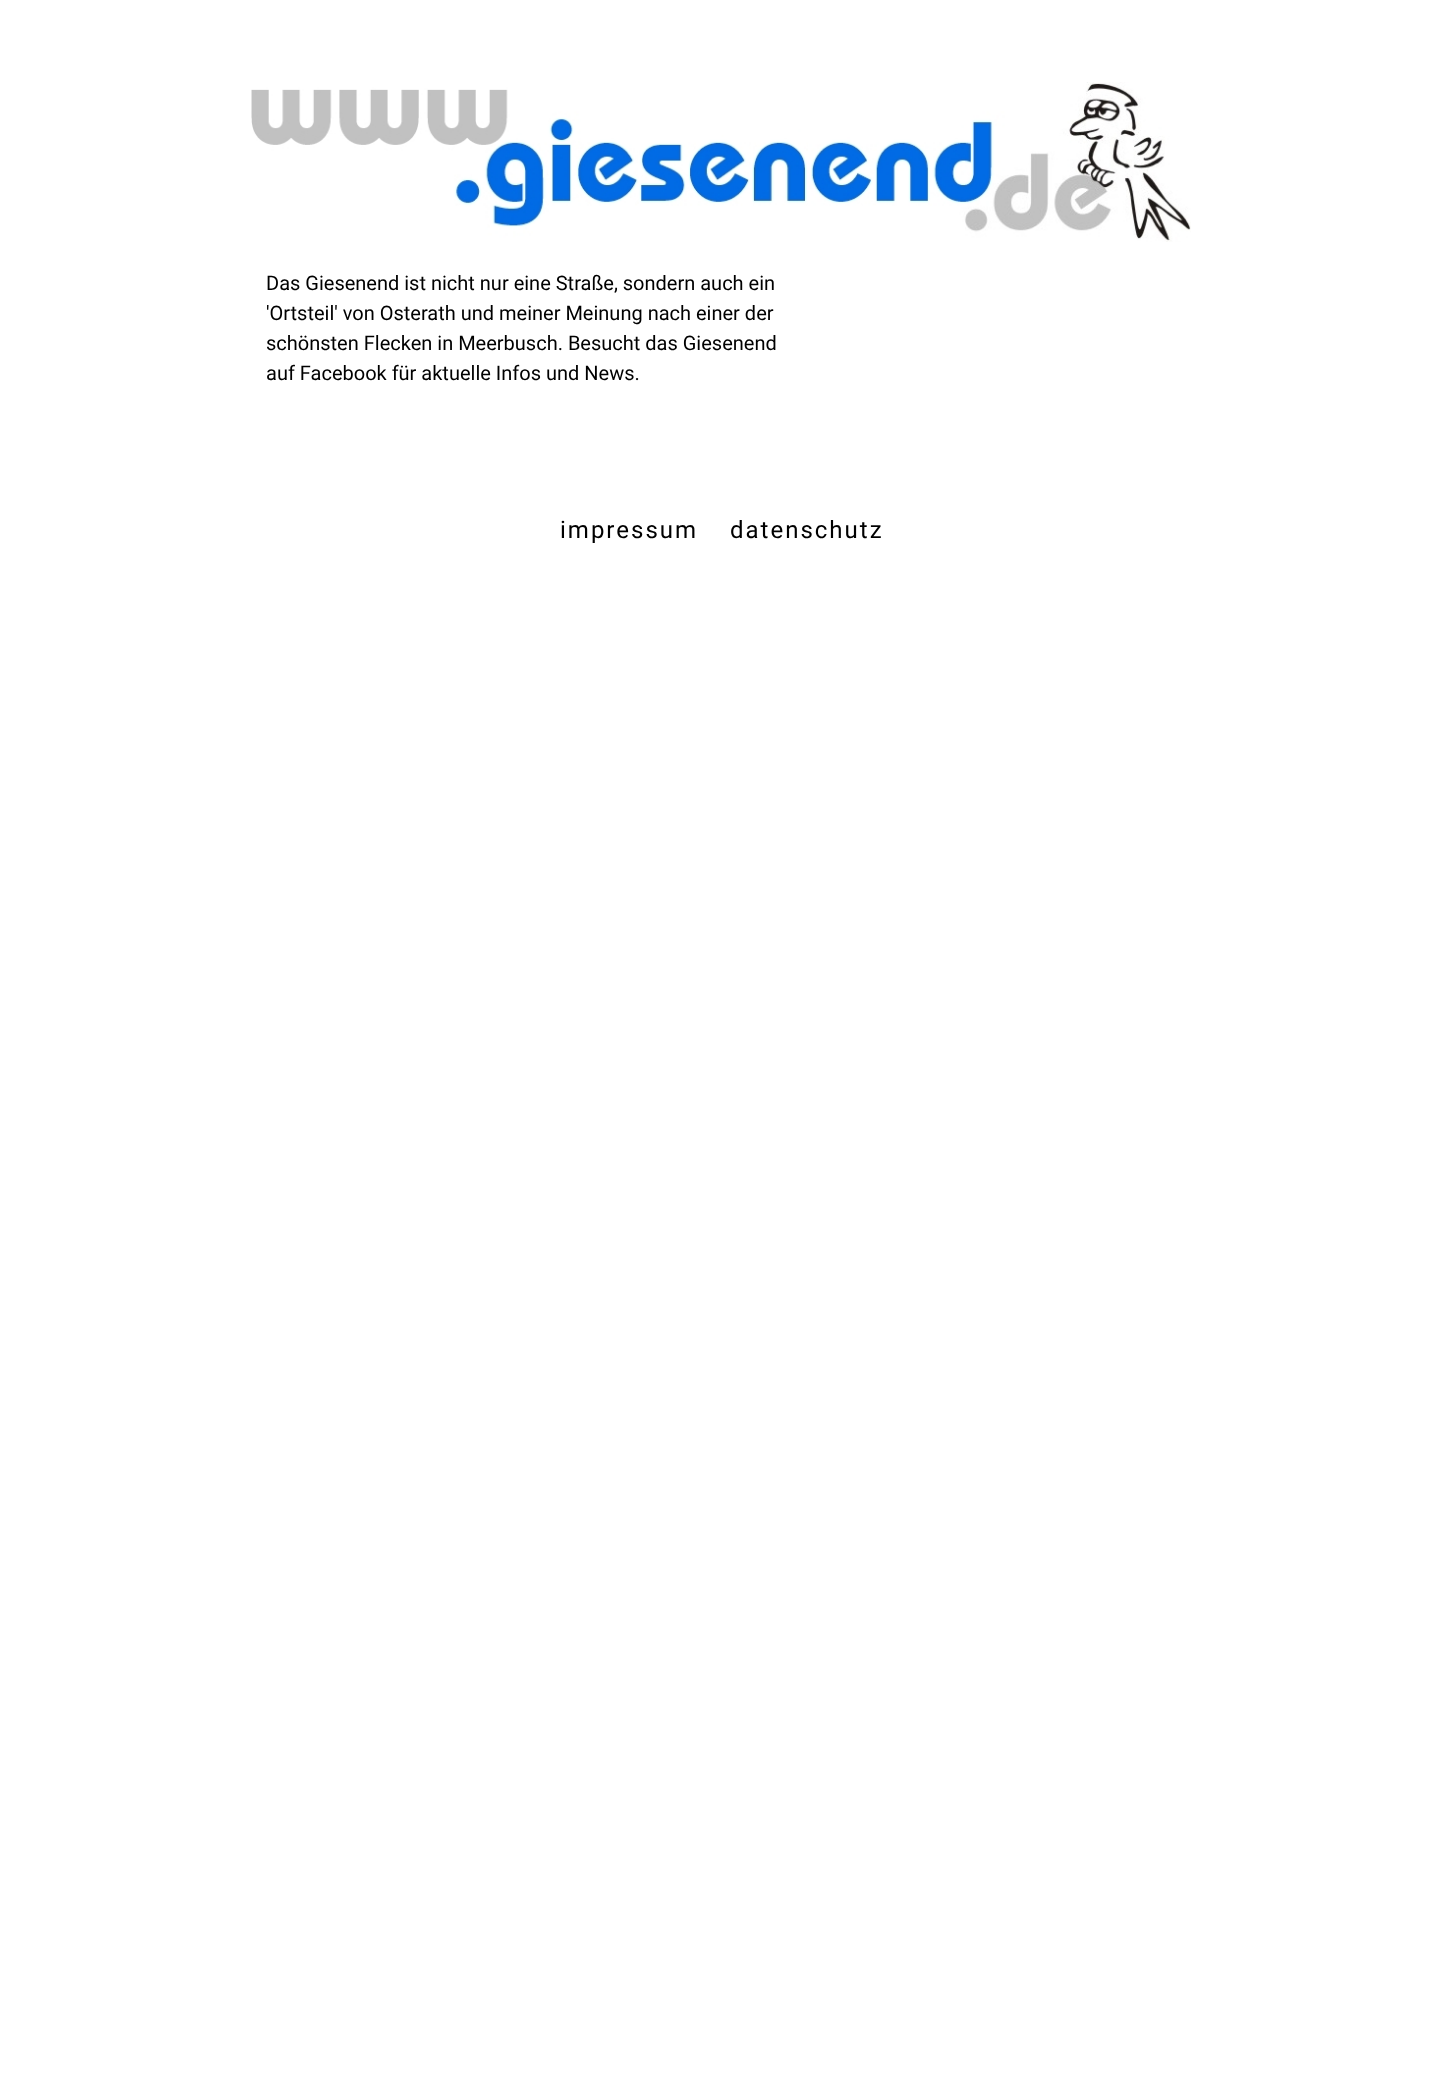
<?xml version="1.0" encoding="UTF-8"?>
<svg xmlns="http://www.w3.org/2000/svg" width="1443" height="2086">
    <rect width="100%" height="100%" fill="#FFFFFF"/>
    <image x="251" y="82" width="940" height="160" href="img_01.png"/>
    <text font-family="Roboto" font-size="20" fill="#000000">
        <tspan x="266" y="290">Das Giesenend ist nicht nur eine Straße, sondern auch ein</tspan>
        <tspan x="266" y="320">'Ortsteil' von Osterath und meiner Meinung nach einer der</tspan>
        <tspan x="266" y="350">schönsten Flecken in Meerbusch. Besucht das Giesenend</tspan>
        <tspan x="266" y="380">auf Facebook für aktuelle Infos und News.</tspan>
    </text>
    <text x="560" y="538" font-family="Roboto" font-size="24" letter-spacing="2" fill="#000000">impressum</text>
    <text x="730" y="538" font-family="Roboto" font-size="24" letter-spacing="2" fill="#000000">datenschutz</text>
</svg>
